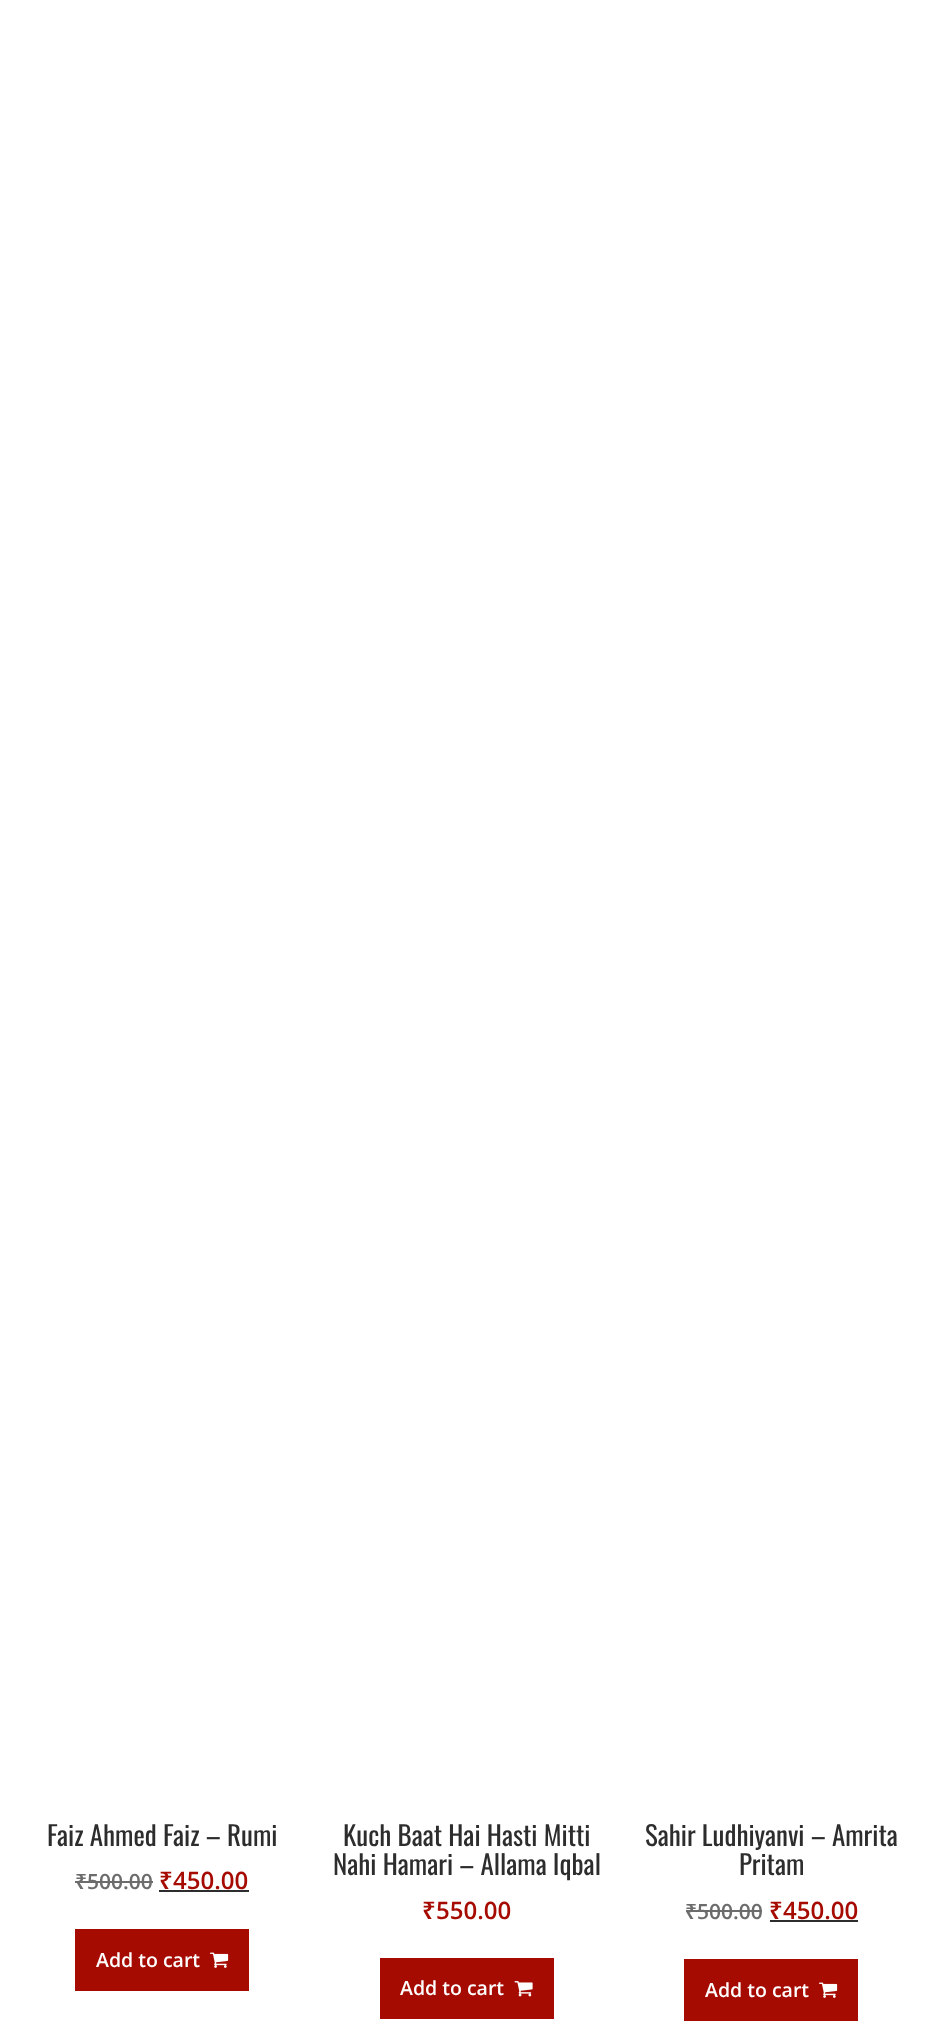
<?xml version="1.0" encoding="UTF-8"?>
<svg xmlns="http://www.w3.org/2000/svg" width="934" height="2032">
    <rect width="100%" height="100%" fill="#FFFFFF"/>
    <text x="47" y="1846" font-family="Oswald" font-size="27" fill="#2D2D2D">Faiz Ahmed Faiz – Rumi</text>
    <text x="75" y="1889" font-family="Noto Sans" font-size="21" font-weight="600" fill="#6C6C6C">₹</text>
    <rect x="75" y="1881" width="12" height="2" fill="#6C6C6C"/>
    <text x="87" y="1889" font-family="Open Sans" font-size="21" font-weight="600" fill="#6C6C6C">500.00</text>
    <rect x="87" y="1881" width="66" height="2" fill="#6C6C6C"/>
    <text x="159" y="1889" font-family="Noto Sans" font-size="24" font-weight="600" fill="#A50B00">₹</text>
    <text x="173" y="1889" font-family="Open Sans" font-size="24" font-weight="600" fill="#A50B00">450.00</text>
    <rect x="159" y="1890" width="90" height="2" fill="#2D2D2D"/>
    <rect x="75" y="1929" width="174" height="62" fill="#A50B00"/>
    <text x="96" y="1967" font-family="Open Sans" font-size="19.5" font-weight="600" fill="#FFFFFF">Add to cart</text>
    <image x="210" y="1952" width="19" height="16" href="img_01.png"/>
    <text x="343" y="1846" font-family="Oswald" font-size="27" fill="#2D2D2D">Kuch Baat Hai Hasti Mitti</text>
    <text x="333" y="1875" font-family="Oswald" font-size="27" fill="#2D2D2D">Nahi Hamari – Allama Iqbal</text>
    <text x="422" y="1919" font-family="Noto Sans" font-size="24" font-weight="600" fill="#A50B00">₹</text>
    <text x="436" y="1919" font-family="Open Sans" font-size="24" font-weight="600" fill="#A50B00">550.00</text>
    <rect x="380" y="1958" width="174" height="61" fill="#A50B00"/>
    <text x="400" y="1995" font-family="Open Sans" font-size="19.5" font-weight="600" fill="#FFFFFF">Add to cart</text>
    <image x="514" y="1981" width="19" height="16" href="img_02.png"/>
    <text x="645" y="1846" font-family="Oswald" font-size="27" fill="#2D2D2D">Sahir Ludhiyanvi – Amrita</text>
    <text x="739" y="1875" font-family="Oswald" font-size="27" fill="#2D2D2D">Pritam</text>
    <text x="685" y="1919" font-family="Noto Sans" font-size="21" font-weight="600" fill="#6C6C6C">₹</text>
    <rect x="686" y="1910" width="12" height="2" fill="#6C6C6C"/>
    <text x="697" y="1919" font-family="Open Sans" font-size="21" font-weight="600" fill="#6C6C6C">500.00</text>
    <rect x="698" y="1910" width="64" height="2" fill="#6C6C6C"/>
    <text x="769" y="1919" font-family="Noto Sans" font-size="24" font-weight="600" fill="#A50B00">₹</text>
    <text x="783" y="1919" font-family="Open Sans" font-size="24" font-weight="600" fill="#A50B00">450.00</text>
    <rect x="770" y="1920" width="88" height="2" fill="#2D2D2D"/>
    <rect x="684" y="1959" width="174" height="62" fill="#A50B00"/>
    <text x="705" y="1997" font-family="Open Sans" font-size="19.5" font-weight="600" fill="#FFFFFF">Add to cart</text>
    <image x="819" y="1982" width="19" height="16" href="img_01.png"/>
</svg>
